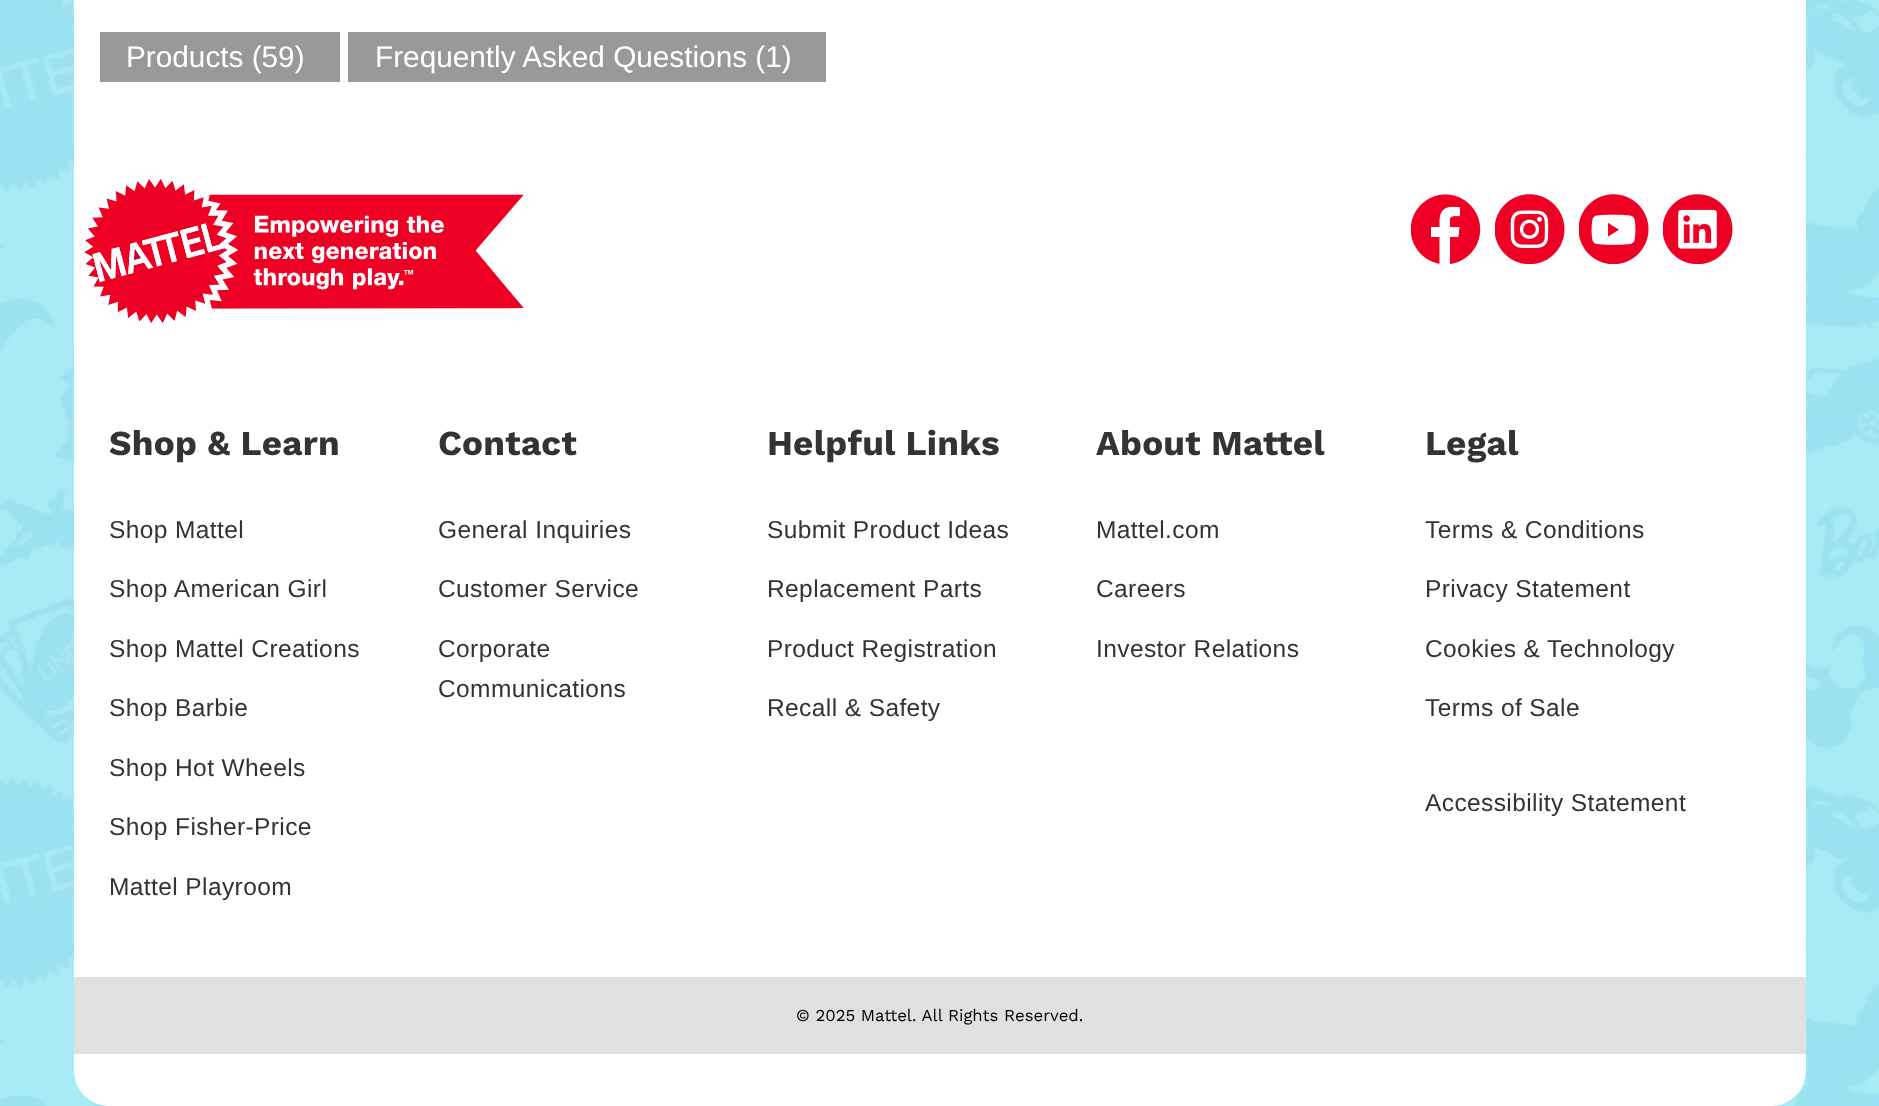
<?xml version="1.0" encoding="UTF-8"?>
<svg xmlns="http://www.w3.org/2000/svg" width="1879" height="1106">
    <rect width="100%" height="100%" fill="#FFFFFF"/>
    <image x="0" y="0" width="1879" height="1106" href="img_01.png"/>
    <rect x="74" y="-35" width="1732" height="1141" rx="35" fill="#FFFFFF"/>
    <rect x="100" y="32" width="240" height="50" fill="#999999"/>
    <text x="126" y="67" font-family="Liberation Sans" font-size="29.75" fill="#FFFFFF">Products (59)</text>
    <rect x="348" y="32" width="478" height="50" fill="#999999"/>
    <text x="375" y="67" font-family="Liberation Sans" font-size="29.75" fill="#FFFFFF">Frequently Asked Questions (1)</text>
    <image x="84" y="178" width="440" height="146" href="img_02.png"/>
    <image x="1411" y="194" width="70" height="70" href="img_03.png"/>
    <image x="1495" y="194" width="70" height="70" href="img_04.png"/>
    <image x="1579" y="194" width="70" height="70" href="img_05.png"/>
    <image x="1663" y="194" width="70" height="70" href="img_06.png"/>
    <text x="109" y="455" font-family="Work Sans" font-size="35" font-weight="700" letter-spacing="0.25" fill="#333333">Shop &amp; Learn</text>
    <text x="109" y="538" font-family="Liberation Sans" font-size="24.5" letter-spacing="0.4" fill="#333333">Shop Mattel</text>
    <text x="109" y="597" font-family="Liberation Sans" font-size="24.5" letter-spacing="0.4" fill="#333333">Shop American Girl</text>
    <text x="109" y="657" font-family="Liberation Sans" font-size="24.5" letter-spacing="0.4" fill="#333333">Shop Mattel Creations</text>
    <text x="109" y="716" font-family="Liberation Sans" font-size="24.5" letter-spacing="0.4" fill="#333333">Shop Barbie</text>
    <text x="109" y="776" font-family="Liberation Sans" font-size="24.5" letter-spacing="0.4" fill="#333333">Shop Hot Wheels</text>
    <text x="109" y="835" font-family="Liberation Sans" font-size="24.5" letter-spacing="0.4" fill="#333333">Shop Fisher-Price</text>
    <text x="109" y="895" font-family="Liberation Sans" font-size="24.5" letter-spacing="0.4" fill="#333333">Mattel Playroom</text>
    <text x="438" y="455" font-family="Work Sans" font-size="35" font-weight="700" letter-spacing="0.25" fill="#333333">Contact</text>
    <text x="438" y="538" font-family="Liberation Sans" font-size="24.5" letter-spacing="0.4" fill="#333333">General Inquiries</text>
    <text x="438" y="597" font-family="Liberation Sans" font-size="24.5" letter-spacing="0.4" fill="#333333">Customer Service</text>
    <text font-family="Liberation Sans" font-size="24.5" letter-spacing="0.4" fill="#333333">
        <tspan x="438" y="657">Corporate</tspan>
        <tspan x="438" y="697">Communications</tspan>
    </text>
    <text x="767" y="455" font-family="Work Sans" font-size="35" font-weight="700" letter-spacing="0.25" fill="#333333">Helpful Links</text>
    <text x="767" y="538" font-family="Liberation Sans" font-size="24.5" letter-spacing="0.4" fill="#333333">Submit Product Ideas</text>
    <text x="767" y="597" font-family="Liberation Sans" font-size="24.5" letter-spacing="0.4" fill="#333333">Replacement Parts</text>
    <text x="767" y="657" font-family="Liberation Sans" font-size="24.5" letter-spacing="0.4" fill="#333333">Product Registration</text>
    <text x="767" y="716" font-family="Liberation Sans" font-size="24.5" letter-spacing="0.4" fill="#333333">Recall &amp; Safety</text>
    <text x="1096" y="455" font-family="Work Sans" font-size="35" font-weight="700" letter-spacing="0.25" fill="#333333">About Mattel</text>
    <text x="1096" y="538" font-family="Liberation Sans" font-size="24.5" letter-spacing="0.4" fill="#333333">Mattel.com</text>
    <text x="1096" y="597" font-family="Liberation Sans" font-size="24.5" letter-spacing="0.4" fill="#333333">Careers</text>
    <text x="1096" y="657" font-family="Liberation Sans" font-size="24.5" letter-spacing="0.4" fill="#333333">Investor Relations</text>
    <text x="1425" y="455" font-family="Work Sans" font-size="35" font-weight="700" letter-spacing="0.25" fill="#333333">Legal</text>
    <text x="1425" y="538" font-family="Liberation Sans" font-size="24.5" letter-spacing="0.4" fill="#333333">Terms &amp; Conditions</text>
    <text x="1425" y="597" font-family="Liberation Sans" font-size="24.5" letter-spacing="0.4" fill="#333333">Privacy Statement</text>
    <text x="1425" y="657" font-family="Liberation Sans" font-size="24.5" letter-spacing="0.4" fill="#333333">Cookies &amp; Technology</text>
    <text x="1425" y="716" font-family="Liberation Sans" font-size="24.5" letter-spacing="0.4" fill="#333333">Terms of Sale</text>
    <text x="1425" y="811" font-family="Liberation Sans" font-size="24.5" letter-spacing="0.4" fill="#333333">Accessibility Statement</text>
    <rect x="74" y="977" width="1732" height="77" fill="#E0E0E0"/>
    <text x="796" y="1021" font-family="Work Sans" font-size="16.75" fill="#000000">© 2025 Mattel. All Rights Reserved.</text>
</svg>
